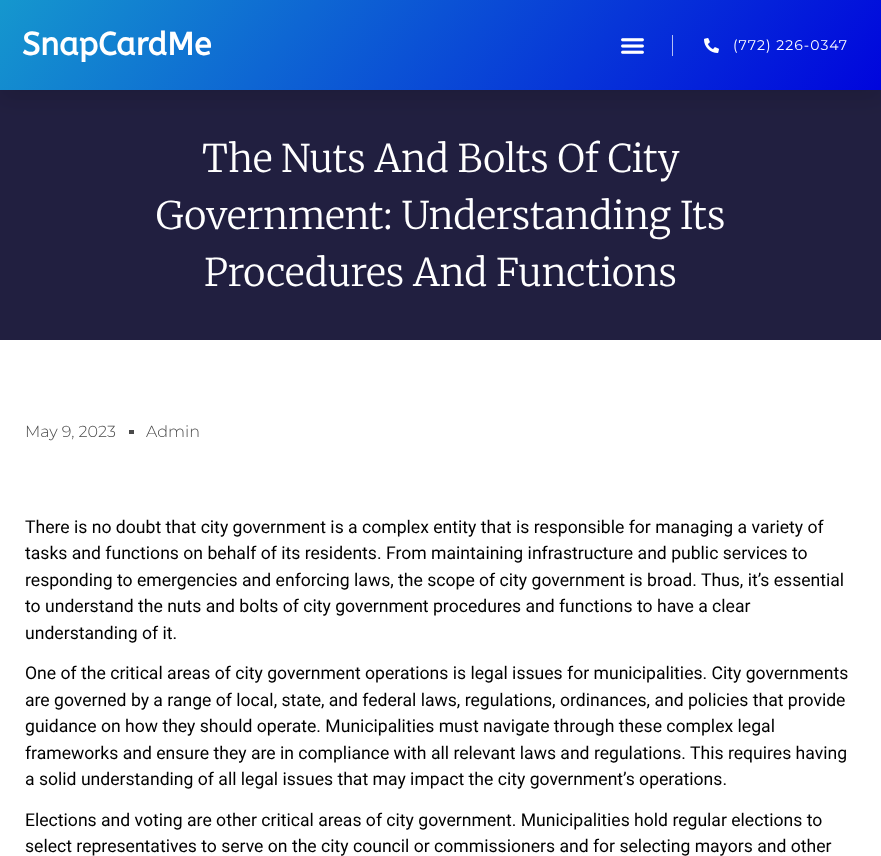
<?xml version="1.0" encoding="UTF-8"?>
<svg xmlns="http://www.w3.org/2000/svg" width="881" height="856">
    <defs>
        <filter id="blur1" x="-50%" y="-200%" width="200%" height="500%"><feGaussianBlur stdDeviation="10"/></filter>
        <linearGradient id="g1" gradientUnits="userSpaceOnUse" x1="160" y1="-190" x2="721" y2="280"><stop offset="0" stop-color="#1597CE"/><stop offset="1" stop-color="#0005DD"/></linearGradient>
        <linearGradient id="g2" gradientUnits="userSpaceOnUse" x1="160" y1="-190" x2="721" y2="280"><stop offset="0" stop-color="#B9E0F0"/><stop offset="1" stop-color="#B3B4F5"/></linearGradient>
    </defs>
    <rect width="100%" height="100%" fill="#FFFFFF"/>
    <rect x="0" y="90" width="881" height="250" fill="#211F40"/>
    <rect x="0" y="10" width="881" height="90" fill="#000000" fill-opacity="0.1" filter="url(#blur1)"/>
    <rect x="0" y="0" width="881" height="90" fill="url(#g1)"/>
    <rect x="672" y="35" width="1" height="21" fill="url(#g2)"/>
    <text x="22" y="55" font-family="ABeeZee" font-size="32" font-weight="700" fill="#FFFFFF">SnapCardMe</text>
    <image x="621" y="38" width="23" height="16" href="img_01.png"/>
    <image x="704" y="38" width="15" height="15" href="img_02.png"/>
    <text x="733" y="50" font-family="Montserrat" font-size="14" letter-spacing="1" fill="#FFFFFF">(772) 226-0347</text>
    <text x="202" y="172" font-family="Merriweather" font-size="38" font-weight="300" fill="#FFFFFF">The Nuts And Bolts Of City</text>
    <text x="156" y="229" font-family="Merriweather" font-size="38" font-weight="300" fill="#FFFFFF">Government: Understanding Its</text>
    <text x="204" y="286" font-family="Merriweather" font-size="38" font-weight="300" fill="#FFFFFF">Procedures And Functions</text>
    <text x="25" y="437" font-family="Montserrat" font-size="16" font-weight="300" fill="#4A4A4A">May 9, 2023</text>
    <rect x="129" y="430" width="5" height="4" fill="#4A4A4A"/>
    <text x="146" y="437" font-family="Montserrat" font-size="16" font-weight="300" fill="#4A4A4A">Admin</text>
    <text font-family="Roboto" font-size="17.6" fill="#000000">
        <tspan x="25" y="533">There is no doubt that city government is a complex entity that is responsible for managing a variety of</tspan>
        <tspan x="25" y="559">tasks and functions on behalf of its residents. From maintaining infrastructure and public services to</tspan>
        <tspan x="25" y="586">responding to emergencies and enforcing laws, the scope of city government is broad. Thus, it’s essential</tspan>
        <tspan x="25" y="612">to understand the nuts and bolts of city government procedures and functions to have a clear</tspan>
        <tspan x="25" y="639">understanding of it.</tspan>
    </text>
    <text font-family="Roboto" font-size="17.6" fill="#000000">
        <tspan x="25" y="679">One of the critical areas of city government operations is legal issues for municipalities. City governments</tspan>
        <tspan x="25" y="706">are governed by a range of local, state, and federal laws, regulations, ordinances, and policies that provide</tspan>
        <tspan x="25" y="732">guidance on how they should operate. Municipalities must navigate through these complex legal</tspan>
        <tspan x="25" y="759">frameworks and ensure they are in compliance with all relevant laws and regulations. This requires having</tspan>
        <tspan x="25" y="785">a solid understanding of all legal issues that may impact the city government’s operations.</tspan>
    </text>
    <text font-family="Roboto" font-size="17.6" fill="#000000">
        <tspan x="25" y="826">Elections and voting are other critical areas of city government. Municipalities hold regular elections to</tspan>
        <tspan x="25" y="852">select representatives to serve on the city council or commissioners and for selecting mayors and other</tspan>
    </text>
</svg>
